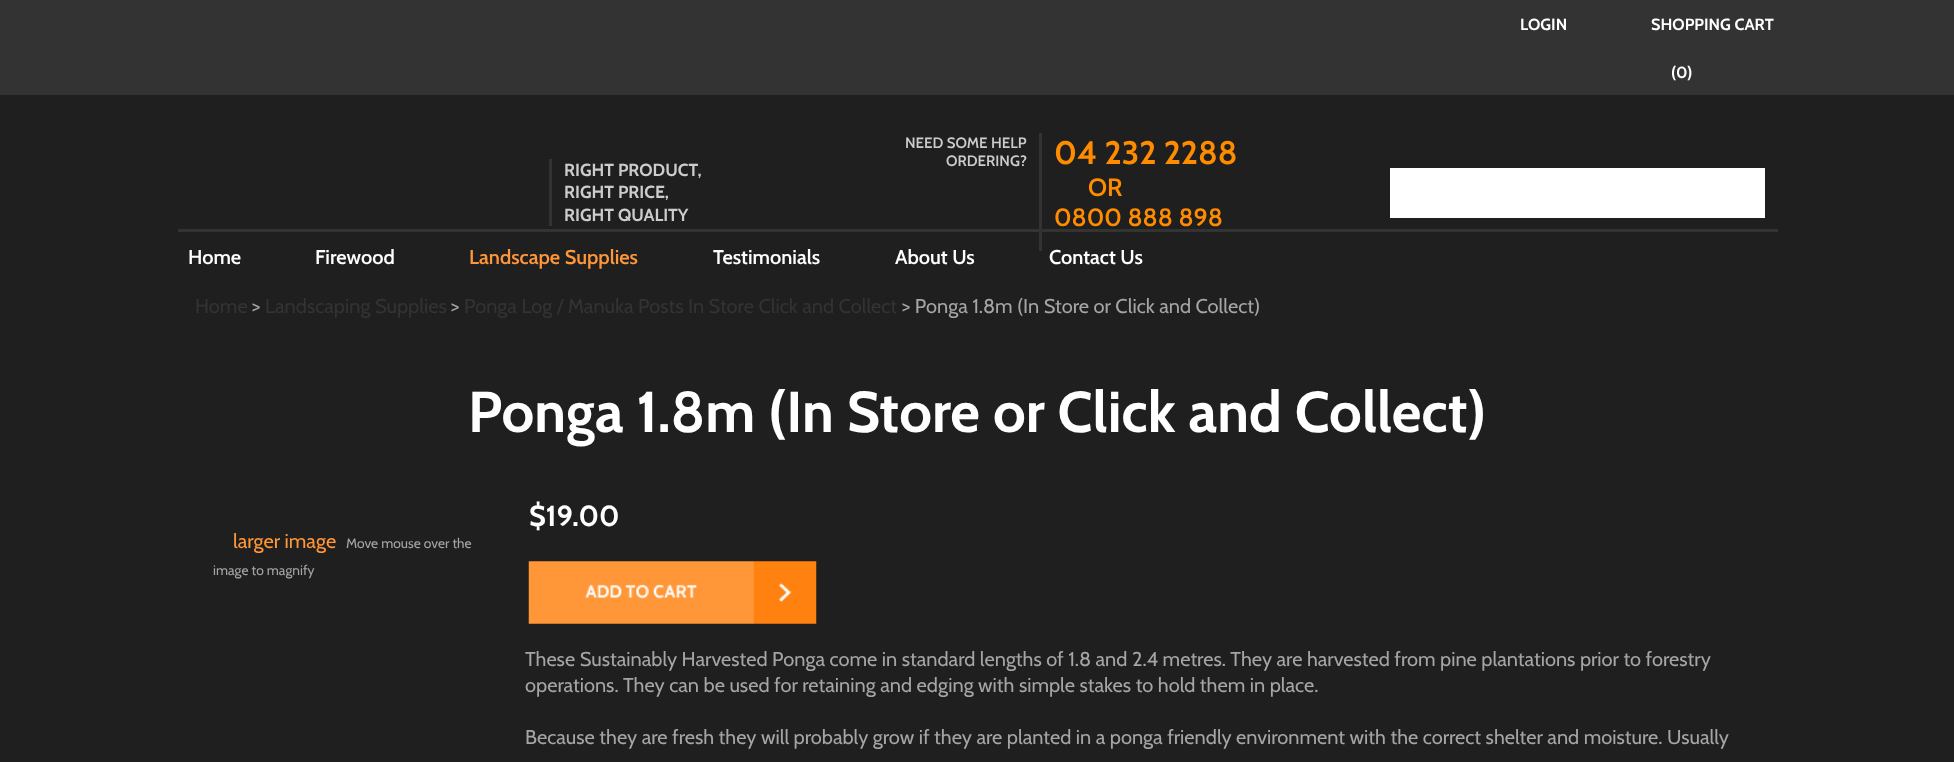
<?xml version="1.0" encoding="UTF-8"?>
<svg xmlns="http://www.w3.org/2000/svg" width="1954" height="762">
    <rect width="100%" height="100%" fill="#1F1F1F"/>
    <rect x="0" y="0" width="1954" height="95" fill="#333333"/>
    <text x="1520" y="30" font-family="Cabin" font-size="16.25" font-weight="700" fill="#FFFFFF">LOGIN</text>
    <text x="1651" y="30" font-family="Cabin" font-size="16.25" font-weight="700" fill="#FFFFFF">SHOPPING CART</text>
    <text x="1671" y="78" font-family="Cabin" font-size="16.25" font-weight="700" fill="#FFFFFF">(0)</text>
    <rect x="549" y="159" width="3" height="67" fill="#333333"/>
    <text font-family="Cabin" font-size="17.5" font-weight="700" fill="#CCCCCC">
        <tspan x="564" y="176">RIGHT PRODUCT,</tspan>
        <tspan x="564" y="198">RIGHT PRICE,</tspan>
        <tspan x="564" y="221">RIGHT QUALITY</tspan>
    </text>
    <rect x="1039" y="133" width="3" height="118" fill="#333333"/>
    <text x="905" y="148" font-family="Cabin" font-size="15" font-weight="600" fill="#CCCCCC">NEED SOME HELP</text>
    <text x="946" y="166" font-family="Cabin" font-size="15" font-weight="600" fill="#CCCCCC">ORDERING?</text>
    <text x="1054" y="164" font-family="Cabin" font-size="32.5" font-weight="700" fill="#FF8C00">04 232 2288</text>
    <text x="1088" y="196" font-family="Cabin" font-size="25" font-weight="600" fill="#FF8C00">OR</text>
    <text x="1054" y="226" font-family="Cabin" font-size="25" font-weight="600" fill="#FF8C00">0800 888 898</text>
    <rect x="1390" y="168" width="375" height="50" fill="#FFFFFF"/>
    <rect x="178" y="229" width="1600" height="3" fill="#333333"/>
    <text x="188" y="264" font-family="Cabin" font-size="20" font-weight="600" fill="#FFFFFF">Home</text>
    <text x="315" y="264" font-family="Cabin" font-size="20" font-weight="600" fill="#FFFFFF">Firewood</text>
    <text x="469" y="264" font-family="Cabin" font-size="20" font-weight="600" fill="#FF9738">Landscape Supplies</text>
    <text x="713" y="264" font-family="Cabin" font-size="20" font-weight="600" fill="#FFFFFF">Testimonials</text>
    <text x="895" y="264" font-family="Cabin" font-size="20" font-weight="600" fill="#FFFFFF">About Us</text>
    <text x="1049" y="264" font-family="Cabin" font-size="20" font-weight="600" fill="#FFFFFF">Contact Us</text>
    <text x="195" y="313" font-family="Cabin" font-size="20" fill="#333333">Home</text>
    <text x="252" y="313" font-family="Cabin" font-size="20" fill="#A5A5A5">&gt;</text>
    <text x="265" y="313" font-family="Cabin" font-size="20" fill="#333333">Landscaping Supplies</text>
    <text x="451" y="313" font-family="Cabin" font-size="20" fill="#A5A5A5">&gt;</text>
    <text x="464" y="313" font-family="Cabin" font-size="20" fill="#333333">Ponga Log / Manuka Posts In Store Click and Collect</text>
    <text x="902" y="313" font-family="Cabin" font-size="20" fill="#A5A5A5">&gt; Ponga 1.8m (In Store or Click and Collect)</text>
    <text x="468" y="432" font-family="Cabin" font-size="57.5" font-weight="700" fill="#FFFFFF">Ponga 1.8m (In Store or Click and Collect)</text>
    <text x="233" y="548" font-family="Cabin" font-size="20" fill="#FF9738">larger image</text>
    <text x="346" y="548" font-family="Cabin" font-size="13.75" fill="#A5A5A5">Move mouse over the</text>
    <text x="213" y="575" font-family="Cabin" font-size="13.75" fill="#A5A5A5">image to magnify</text>
    <text x="529" y="526" font-family="Cabin" font-size="29" font-weight="700" fill="#FFFFFF">$19.00</text>
    <image x="528" y="561" width="289" height="63" href="img_01.png"/>
    <text font-family="Cabin" font-size="20" fill="#A5A5A5">
        <tspan x="525" y="666">These Sustainably Harvested Ponga come in standard lengths of 1.8 and 2.4 metres. They are harvested from pine plantations prior to forestry</tspan>
        <tspan x="525" y="692">operations. They can be used for retaining and edging with simple stakes to hold them in place.</tspan>
    </text>
    <text x="525" y="744" font-family="Cabin" font-size="20" fill="#A5A5A5">Because they are fresh they will probably grow if they are planted in a ponga friendly environment with the correct shelter and moisture. Usually</text>
</svg>
